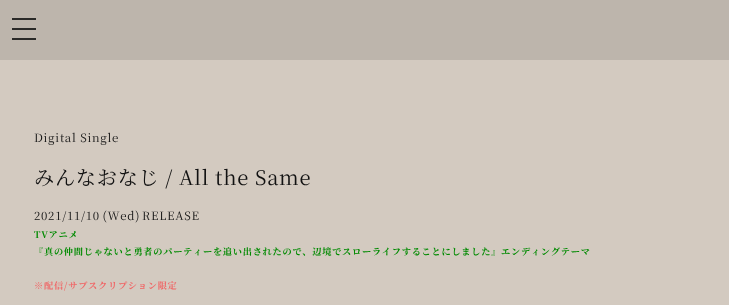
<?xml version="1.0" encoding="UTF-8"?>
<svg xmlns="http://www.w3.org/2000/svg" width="729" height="305">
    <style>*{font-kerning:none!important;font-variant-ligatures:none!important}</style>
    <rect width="100%" height="100%" fill="#D3CAC0"/>
    <rect x="0" y="0" width="729" height="60" fill="#BDB5AC"/>
    <rect x="12" y="28" width="24" height="2" fill="#2B2A28"/>
    <rect x="12" y="18" width="24" height="2" fill="#2B2A28"/>
    <rect x="12" y="38" width="24" height="2" fill="#2B2A28"/>
    <text x="34" y="142" font-family="Noto Serif JP" font-size="11.5" letter-spacing="0.72" fill="#111111">Digital Single</text>
    <text x="34" y="185" font-family="Noto Serif JP" font-size="20.2" letter-spacing="0.72" fill="#111111">みんなおなじ / All the Same</text>
    <text x="34" y="220" word-spacing="-1" font-family="Noto Serif JP" font-size="11.5" letter-spacing="0.72" fill="#111111">2021/11/10 (Wed)</text>
    <text x="142" y="220" font-family="Noto Serif JP" font-size="11.5" letter-spacing="0.72" fill="#111111">RELEASE</text>
    <text font-family="Noto Serif JP" font-size="9.22" font-weight="700" letter-spacing="0.72" fill="#008A00">
        <tspan x="34" y="238">TVアニメ</tspan>
        <tspan x="34" y="255">『真の仲間じゃないと勇者のパーティーを追い出されたので、辺境でスローライフすることにしました』エンディングテーマ</tspan>
    </text>
    <text x="34" y="289" font-family="Noto Serif JP" font-size="9.22" font-weight="700" letter-spacing="0.72" fill="#F06666">※配信/サブスクリプション限定</text>
</svg>
